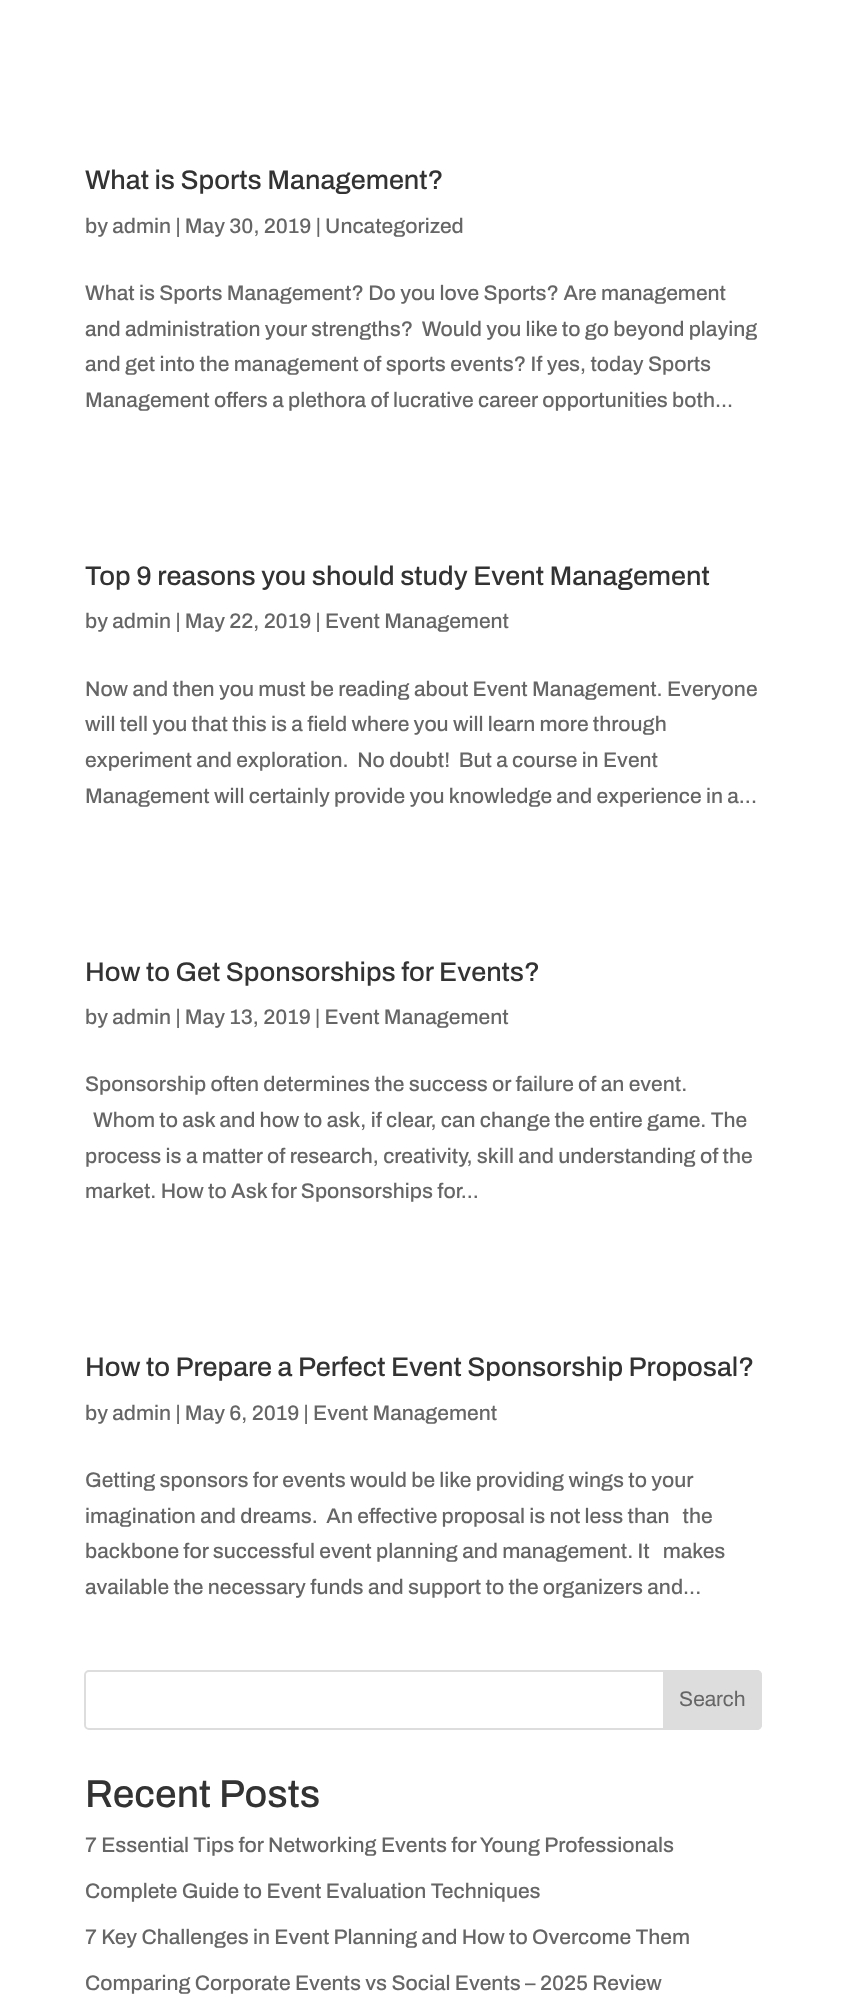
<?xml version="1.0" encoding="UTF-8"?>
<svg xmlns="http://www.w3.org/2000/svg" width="845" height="2013">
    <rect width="100%" height="100%" fill="#FFFFFF"/>
    <text x="85" y="189" font-family="Archivo" font-size="27" font-weight="500" fill="#333333">What is Sports Management?</text>
    <text x="85" y="233" font-family="Archivo" font-size="21" font-weight="500" fill="#666666">by admin | May 30, 2019 | Uncategorized</text>
    <text font-family="Archivo" font-size="21" font-weight="500" fill="#666666" xml:space="preserve"><tspan x="85" y="300">What is Sports Management? Do you love Sports? Are management</tspan><tspan x="85" y="336">and administration your strengths?  Would you like to go beyond playing</tspan><tspan x="85" y="371">and get into the management of sports events? If yes, today Sports</tspan><tspan x="85" y="407">Management offers a plethora of lucrative career opportunities both...</tspan></text>
    <text x="85" y="585" font-family="Archivo" font-size="27" font-weight="500" fill="#333333">Top 9 reasons you should study Event Management</text>
    <text x="85" y="628" font-family="Archivo" font-size="21" font-weight="500" fill="#666666">by admin | May 22, 2019 | Event Management</text>
    <text font-family="Archivo" font-size="21" font-weight="500" fill="#666666" xml:space="preserve"><tspan x="85" y="696">Now and then you must be reading about Event Management. Everyone</tspan><tspan x="85" y="731">will tell you that this is a field where you will learn more through</tspan><tspan x="85" y="767">experiment and exploration.  No doubt!  But a course in Event</tspan><tspan x="85" y="803">Management will certainly provide you knowledge and experience in a...</tspan></text>
    <text x="85" y="981" font-family="Archivo" font-size="27" font-weight="500" fill="#333333">How to Get Sponsorships for Events?</text>
    <text x="85" y="1024" font-family="Archivo" font-size="21" font-weight="500" fill="#666666">by admin | May 13, 2019 | Event Management</text>
    <text x="85" y="1091" font-family="Archivo" font-size="21" font-weight="500" fill="#666666">Sponsorship often determines the success or failure of an event.</text>
    <text x="93" y="1127" font-family="Archivo" font-size="21" font-weight="500" fill="#666666">Whom to ask and how to ask, if clear, can change the entire game. The</text>
    <text font-family="Archivo" font-size="21" font-weight="500" fill="#666666">
        <tspan x="85" y="1163">process is a matter of research, creativity, skill and understanding of the</tspan>
        <tspan x="85" y="1198">market. How to Ask for Sponsorships for...</tspan>
    </text>
    <text x="85" y="1376" font-family="Archivo" font-size="27" font-weight="500" fill="#333333">How to Prepare a Perfect Event Sponsorship Proposal?</text>
    <text x="85" y="1420" font-family="Archivo" font-size="21" font-weight="500" fill="#666666">by admin | May 6, 2019 | Event Management</text>
    <text font-family="Archivo" font-size="21" font-weight="500" fill="#666666" xml:space="preserve"><tspan x="85" y="1487">Getting sponsors for events would be like providing wings to your</tspan><tspan x="85" y="1523">imagination and dreams.  An effective proposal is not less than   the</tspan><tspan x="85" y="1558">backbone for successful event planning and management. It   makes</tspan><tspan x="85" y="1594">available the necessary funds and support to the organizers and...</tspan></text>
    <rect x="85" y="1671" width="676" height="58" rx="4" fill="none" stroke="#DDDDDD" stroke-width="2"/>
    <path d="M 664 1671 H 757 C 759 1671 761 1673 761 1675 V 1725 C 761 1727 759 1729 757 1729 H 664 Z" fill="#DDDDDD" stroke="#DDDDDD" stroke-width="2"/>
    <text x="679" y="1706" font-family="Archivo" font-size="21" fill="#666666">Search</text>
    <text x="85" y="1807" font-family="Archivo" font-size="39" font-weight="500" fill="#333333">Recent Posts</text>
    <text x="85" y="1852" font-family="Archivo" font-size="21" font-weight="500" fill="#666666">7 Essential Tips for Networking Events for Young Professionals</text>
    <text x="85" y="1898" font-family="Archivo" font-size="21" font-weight="500" fill="#666666">Complete Guide to Event Evaluation Techniques</text>
    <text x="85" y="1944" font-family="Archivo" font-size="21" font-weight="500" fill="#666666">7 Key Challenges in Event Planning and How to Overcome Them</text>
    <text x="85" y="1990" font-family="Archivo" font-size="21" font-weight="500" fill="#666666">Comparing Corporate Events vs Social Events – 2025 Review</text>
</svg>
